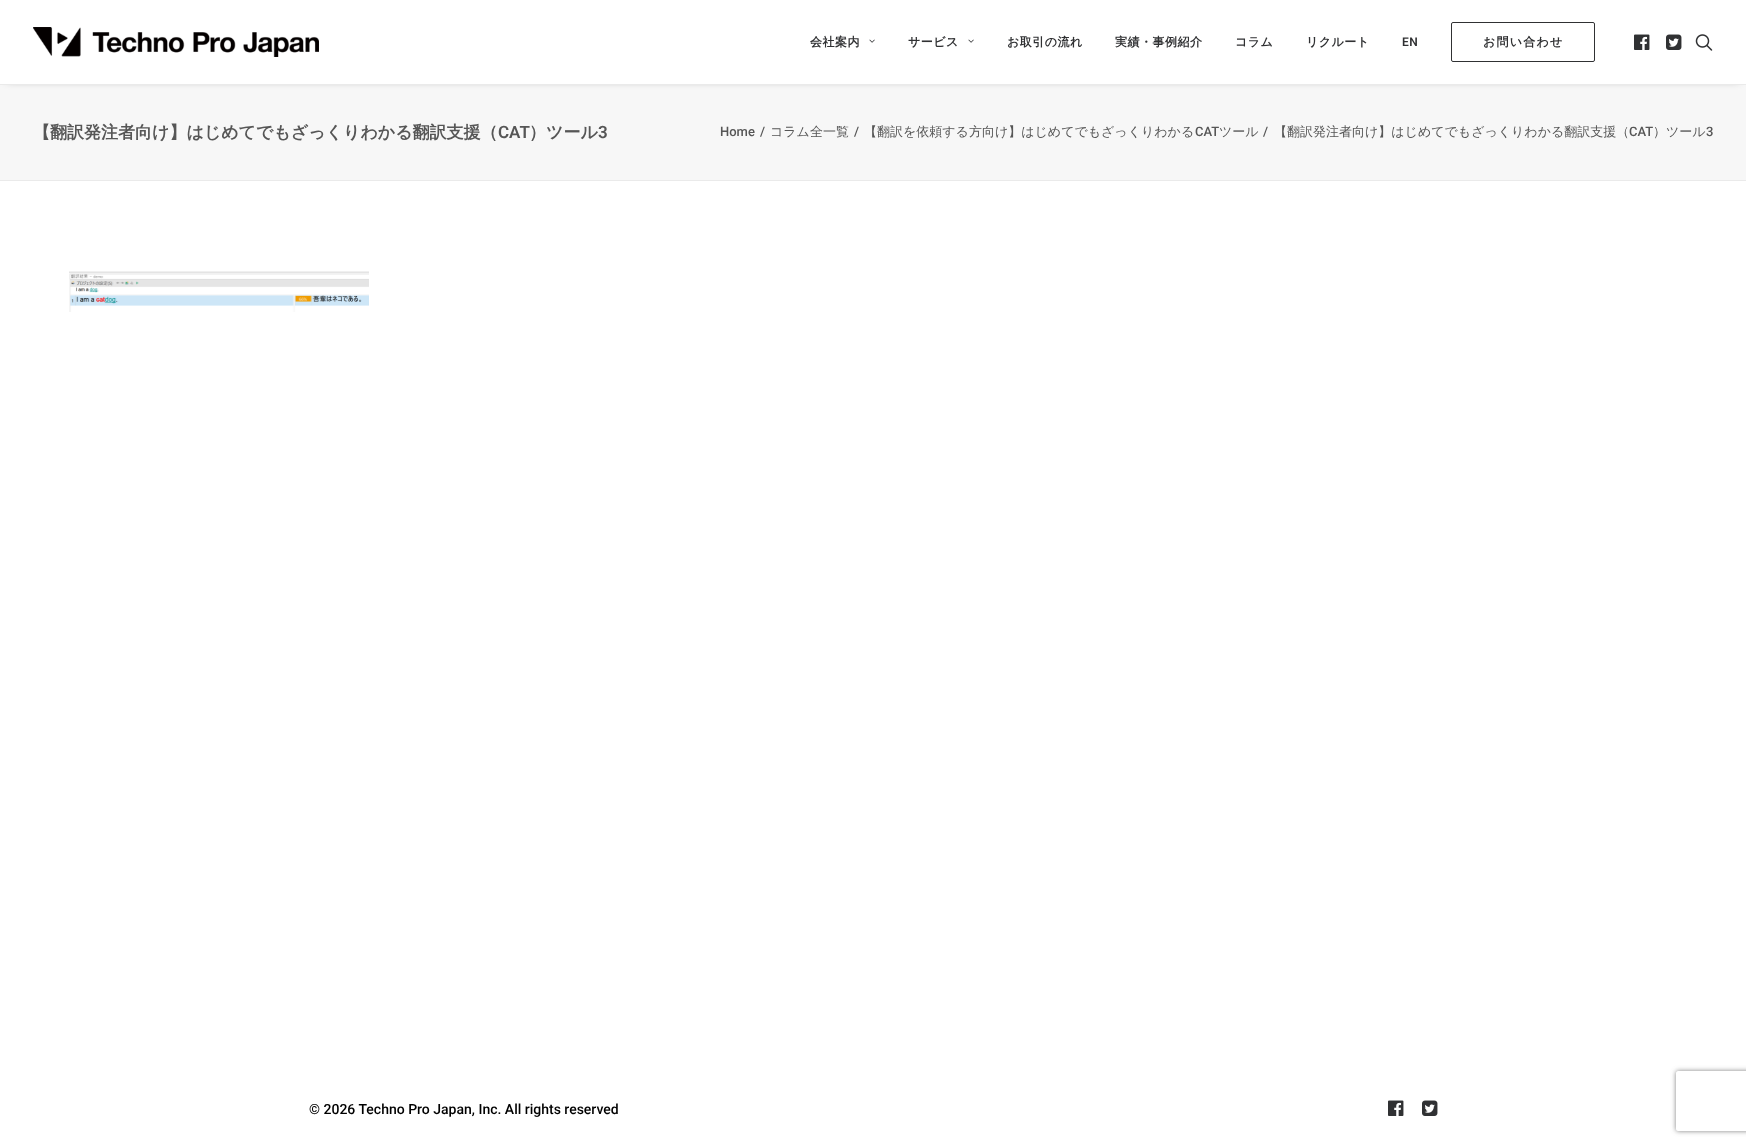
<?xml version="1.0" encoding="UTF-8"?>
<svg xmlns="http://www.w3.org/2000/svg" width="1746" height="1145">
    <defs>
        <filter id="blur1" x="-50%" y="-200%" width="200%" height="500%"><feGaussianBlur stdDeviation="5"/></filter>
        <clipPath id="clip1"><path d="M 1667 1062 H 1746 V 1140 H 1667 Z M 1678 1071 H 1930 C 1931 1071 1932 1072 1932 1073 V 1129 C 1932 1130 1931 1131 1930 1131 H 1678 C 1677 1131 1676 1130 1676 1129 V 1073 C 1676 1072 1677 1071 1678 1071 Z" clip-rule="evenodd"/></clipPath>
        <filter id="blur2" x="-50%" y="-200%" width="200%" height="500%"><feGaussianBlur stdDeviation="2.5"/></filter>
    </defs>
    <rect width="100%" height="100%" fill="#F7F7F7"/>
    <rect x="7" y="14" width="1732" height="65" fill="#000000" fill-opacity="0.6" filter="url(#blur1)"/>
    <rect x="0" y="0" width="1746" height="84" fill="#FFFFFF"/>
    <rect x="0" y="84" width="1746" height="1" fill="#EAEAEA"/>
    <image x="33" y="27" width="286" height="30" href="img_01.png"/>
    <text x="810" y="46" font-family="WenQuanYi Zen Hei" font-size="12" font-weight="700" letter-spacing="0.5" fill="#303133">会社案内</text>
    <image x="869" y="39" width="6" height="4" href="img_02.png"/>
    <text x="908" y="46" font-family="WenQuanYi Zen Hei" font-size="12" font-weight="700" letter-spacing="0.5" fill="#303133">サービス</text>
    <image x="968" y="39" width="6" height="4" href="img_02.png"/>
    <text x="1007" y="46" font-family="WenQuanYi Zen Hei" font-size="12" font-weight="700" letter-spacing="0.5" fill="#303133">お取引の流れ</text>
    <text x="1115" y="46" font-family="WenQuanYi Zen Hei" font-size="12" font-weight="700" letter-spacing="0.5" fill="#303133">実績・事例紹介</text>
    <text x="1235" y="46" font-family="WenQuanYi Zen Hei" font-size="12" font-weight="700" letter-spacing="0.5" fill="#303133">コラム</text>
    <text x="1306" y="46" font-family="WenQuanYi Zen Hei" font-size="12" font-weight="700" letter-spacing="0.5" fill="#303133">リクルート</text>
    <text x="1402" y="46" font-family="Roboto" font-size="12" font-weight="600" letter-spacing="0.5" fill="#303133">EN</text>
    <rect x="1451.5" y="22.5" width="143" height="39" rx="1.5" fill="none" stroke="#303133"/>
    <text x="1483" y="46" font-family="WenQuanYi Zen Hei" font-size="12" font-weight="700" letter-spacing="1.25" fill="#303133">お問い合わせ</text>
    <image x="1634" y="34" width="16" height="16" href="img_03.png"/>
    <image x="1666" y="34" width="16" height="16" href="img_04.png"/>
    <image x="1695" y="34" width="18" height="17" href="img_05.png"/>
    <rect x="0" y="180" width="1746" height="1" fill="#EAEAEA"/>
    <text x="33" y="138" font-family="WenQuanYi Zen Hei" font-size="17" font-weight="700" fill="#565656">【翻訳発注者向け】はじめてでもざっくりわかる翻訳支援（</text>
    <text x="498" y="138" font-family="Roboto" font-size="17" font-weight="600" fill="#565656">CAT</text>
    <text x="529" y="138" font-family="WenQuanYi Zen Hei" font-size="17" font-weight="700" fill="#565656">）ツール</text>
    <text x="598" y="138" font-family="Roboto" font-size="17" font-weight="600" fill="#565656">3</text>
    <text x="720" y="136" font-family="Roboto" font-size="13" font-weight="500" fill="#565656">Home</text>
    <text x="760" y="136" font-family="Roboto" font-size="13" font-weight="500" fill="#565656">/</text>
    <text x="770" y="136" font-family="WenQuanYi Zen Hei" font-size="13" font-weight="500" fill="#565656">コラム全一覧</text>
    <text x="854" y="136" font-family="Roboto" font-size="13" font-weight="500" fill="#565656">/</text>
    <text x="864" y="136" font-family="WenQuanYi Zen Hei" font-size="13" font-weight="500" fill="#565656">【翻訳を依頼する方向け】はじめてでもざっくりわかる</text>
    <text x="1195" y="136" font-family="Roboto" font-size="13" font-weight="500" fill="#565656">CAT</text>
    <text x="1219" y="136" font-family="WenQuanYi Zen Hei" font-size="13" font-weight="500" fill="#565656">ツール</text>
    <text x="1263" y="136" font-family="Roboto" font-size="13" font-weight="500" fill="#565656">/</text>
    <text x="1274" y="136" font-family="WenQuanYi Zen Hei" font-size="13" font-weight="500" fill="#565656">【翻訳発注者向け】はじめてでもざっくりわかる翻訳支援（</text>
    <text x="1629" y="136" font-family="Roboto" font-size="13" font-weight="500" fill="#565656">CAT</text>
    <text x="1653" y="136" font-family="WenQuanYi Zen Hei" font-size="13" font-weight="500" fill="#565656">）ツール</text>
    <text x="1706" y="136" font-family="Roboto" font-size="13" font-weight="500" fill="#565656">3</text>
    <rect x="0" y="181" width="1746" height="964" fill="#FFFFFF"/>
    <image x="69" y="271" width="300" height="41" href="img_06.png"/>
    <text x="309" y="1114" font-family="Roboto" font-size="14" font-weight="500" fill="#000000">© 2026 Techno Pro Japan, Inc. All rights reserved</text>
    <image x="1388" y="1100" width="16" height="16" href="img_03.png"/>
    <image x="1422" y="1100" width="16" height="16" href="img_04.png"/>
    <g clip-path="url(#clip1)">
        <rect x="1676" y="1071" width="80" height="60" rx="2" fill="#808080" filter="url(#blur2)"/>
    </g>
</svg>
